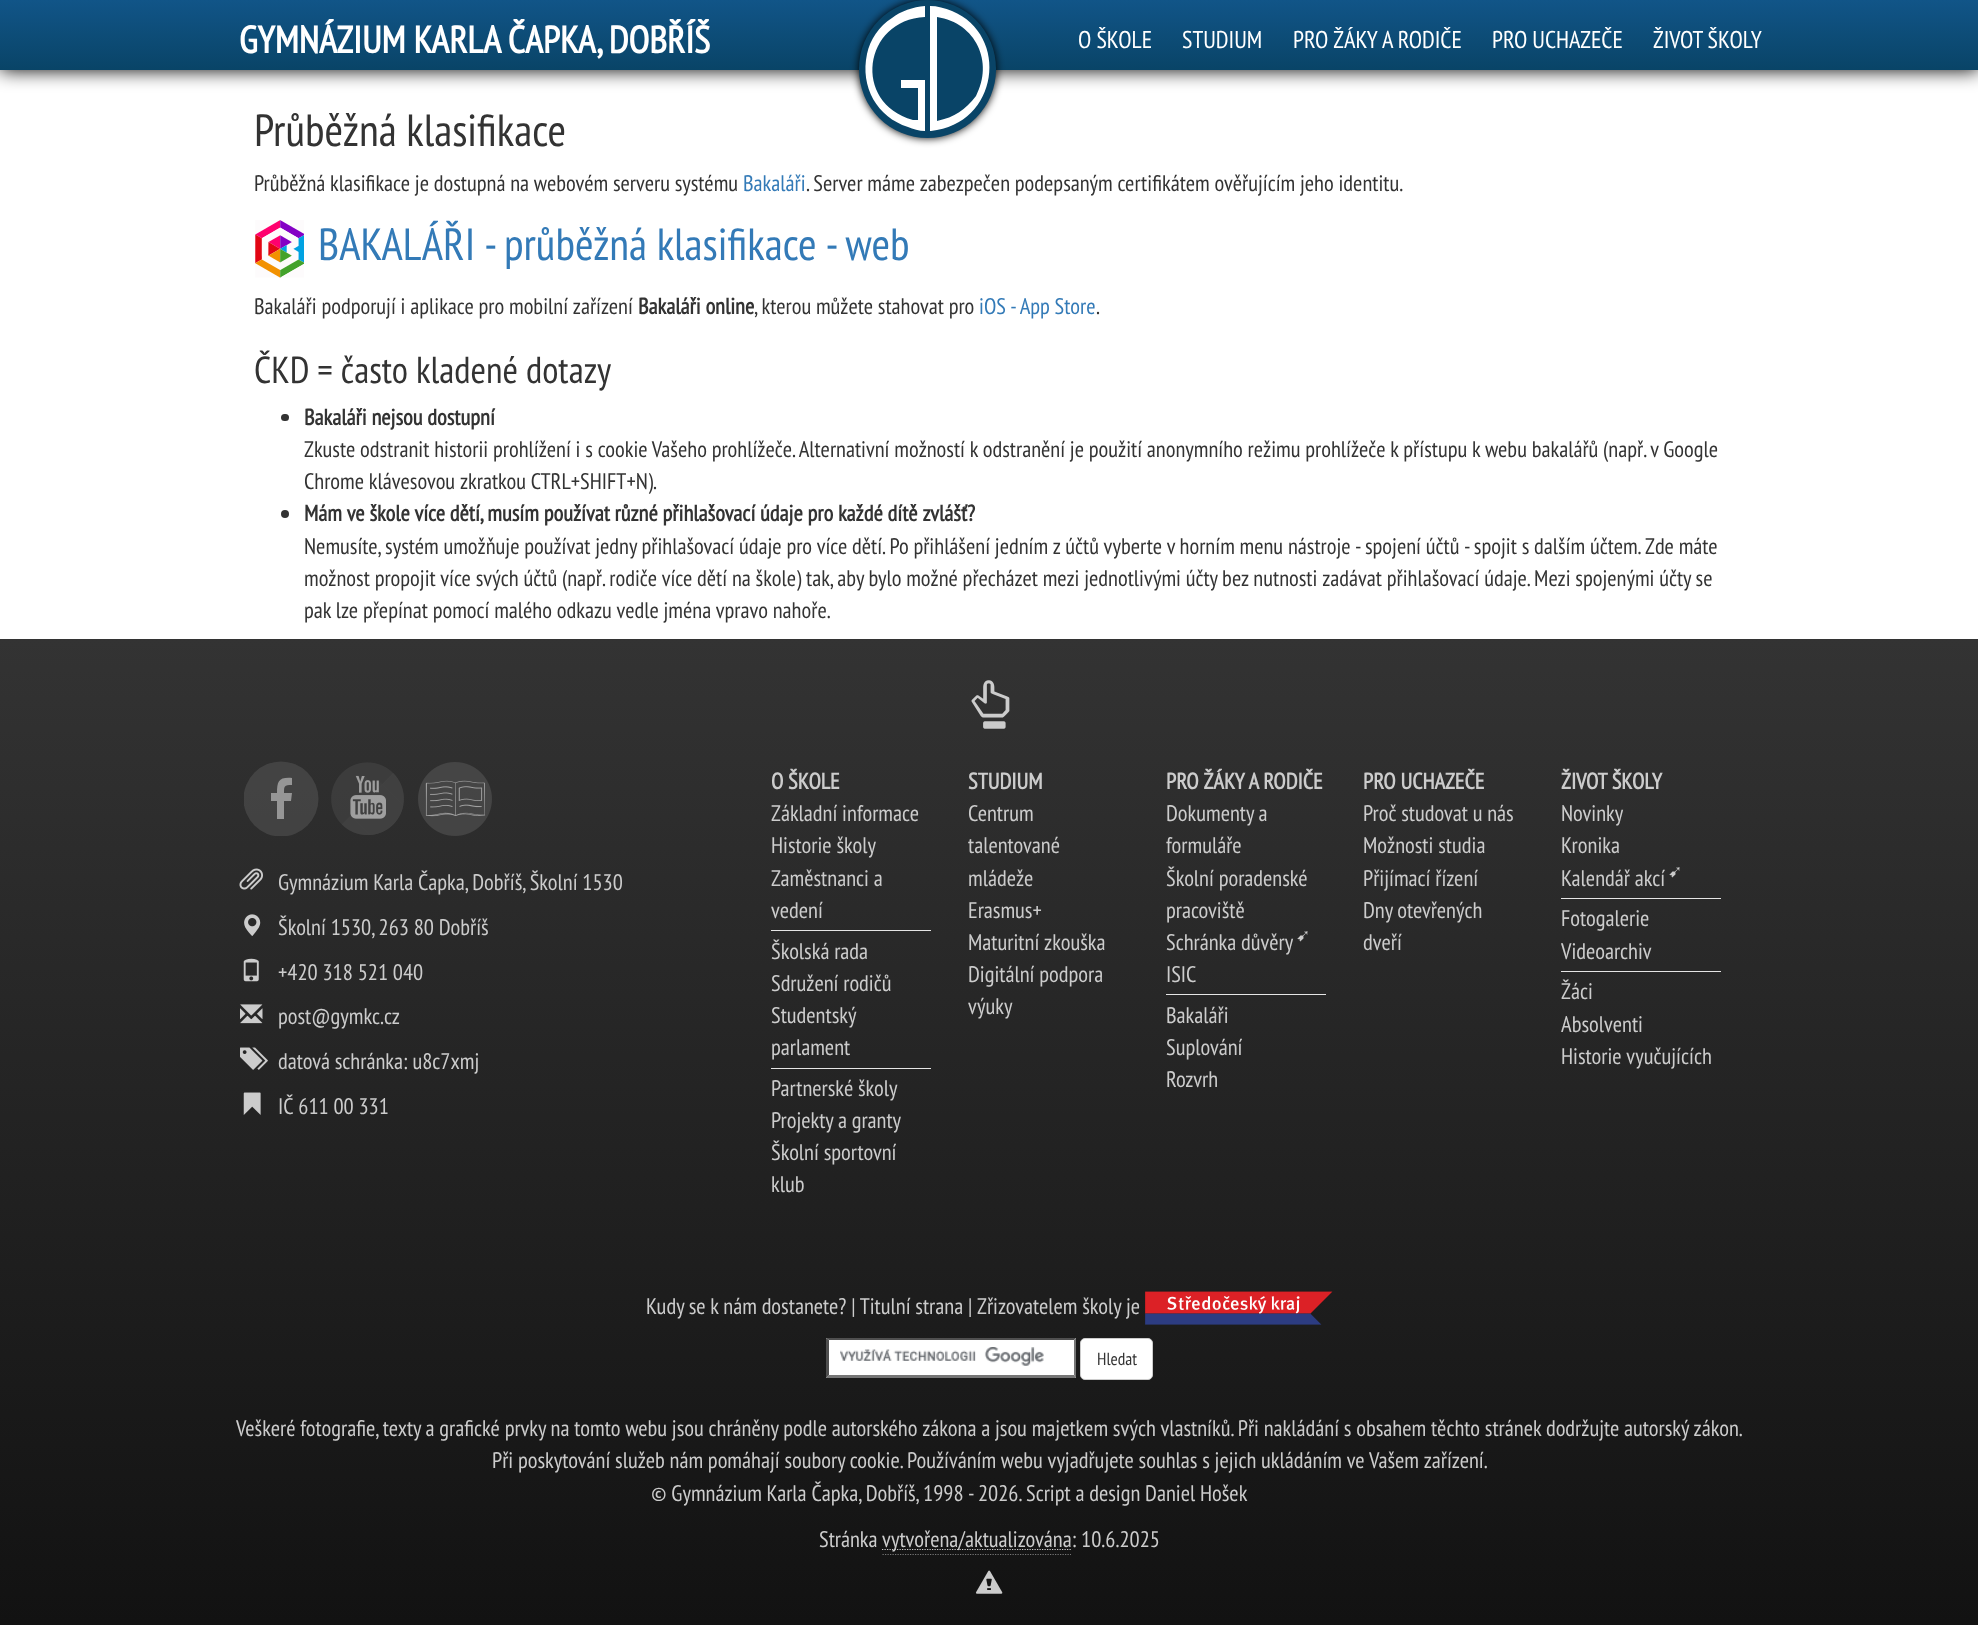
<?xml version="1.0" encoding="UTF-8"?>
<svg xmlns="http://www.w3.org/2000/svg" width="1978" height="1625">
    <defs>
        <filter id="blur1" x="-50%" y="-200%" width="200%" height="500%"><feGaussianBlur stdDeviation="9.5"/></filter>
        <linearGradient id="g1" gradientUnits="userSpaceOnUse" x1="989" y1="0" x2="989" y2="70"><stop offset="0" stop-color="#115588"/><stop offset="1" stop-color="#094467"/></linearGradient>
        <filter id="blur2" x="-50%" y="-200%" width="200%" height="500%"><feGaussianBlur stdDeviation="4"/></filter>
        <linearGradient id="g2" gradientUnits="userSpaceOnUse" x1="989" y1="639" x2="989" y2="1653"><stop offset="0" stop-color="#333333"/><stop offset="1" stop-color="#111111"/></linearGradient>
        <clipPath id="clip1"><rect x="244" y="761" width="75" height="75"/></clipPath>
    </defs>
    <rect width="100%" height="100%" fill="#FFFFFF"/>
    <rect x="0" y="0" width="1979" height="70" fill="#000000" filter="url(#blur1)"/>
    <rect x="0" y="0" width="1978" height="70" fill="url(#g1)"/>
    <text x="239" y="53" font-family="PT Sans Narrow" font-size="37.75" font-weight="700" fill="#FFFFFF">GYMNÁZIUM KARLA ČAPKA, DOBŘÍŠ</text>
    <rect x="859" y="0" width="137" height="138" rx="68.5" fill="#000000" filter="url(#blur2)"/>
    <rect x="859" y="0" width="137" height="138" rx="68.5" fill="#094467"/>
    <path d="M 925 6 V 17 C 863 20 852 103 913 120 H 918 V 88 H 901 V 80 H 925 V 131 C 919 131 913 129 908 127 C 877 117 860 87 867 54 C 870 40 879 26 892 18 C 901 11 913 7 925 6 Z" fill="#FFFFFF"/>
    <path d="M 931 131 H 930 V 6 C 937 6 945 8 952 11 C 1010 35 999 124 931 131 Z M 937 121 C 955 117 965 110 976 96 C 994 62 976 23 937 17 Z" fill="#FFFFFF" fill-rule="evenodd"/>
    <text x="1078" y="48" font-family="PT Sans Narrow" font-size="24.25" fill="#FFFFFF">O ŠKOLE</text>
    <text x="1182" y="48" font-family="PT Sans Narrow" font-size="24.25" fill="#FFFFFF">STUDIUM</text>
    <text x="1293" y="48" font-family="PT Sans Narrow" font-size="24.25" fill="#FFFFFF">PRO ŽÁKY A RODIČE</text>
    <text x="1492" y="48" font-family="PT Sans Narrow" font-size="24.25" fill="#FFFFFF">PRO UCHAZEČE</text>
    <text x="1653" y="48" font-family="PT Sans Narrow" font-size="24.25" fill="#FFFFFF">ŽIVOT ŠKOLY</text>
    <text x="254" y="146" font-family="PT Sans Narrow" font-size="45" fill="#333333">Průběžná klasifikace</text>
    <text x="254" y="191" font-family="PT Sans Narrow" font-size="22.5" fill="#333333">Průběžná klasifikace je dostupná na webovém serveru systému</text>
    <text x="743" y="191" font-family="PT Sans Narrow" font-size="22.5" fill="#337AB7">Bakaláři</text>
    <text x="806" y="191" font-family="PT Sans Narrow" font-size="22.5" fill="#333333">. Server máme zabezpečen podepsaným certifikátem ověřujícím jeho identitu.</text>
    <image x="255" y="220" width="49" height="58" href="img_01.png"/>
    <text x="318" y="260" font-family="PT Sans Narrow" font-size="45" fill="#337AB7">BAKALÁŘI - průběžná klasifikace - web</text>
    <text x="254" y="314" font-family="PT Sans Narrow" font-size="22.5" fill="#333333">Bakaláři podporují i aplikace pro mobilní zařízení</text>
    <text x="638" y="314" font-family="PT Sans Narrow" font-size="22.5" font-weight="700" fill="#333333">Bakaláři online</text>
    <text x="754" y="314" font-family="PT Sans Narrow" font-size="22.5" fill="#333333">, kterou můžete stahovat pro</text>
    <text x="979" y="314" font-family="PT Sans Narrow" font-size="22.5" fill="#337AB7">iOS - App Store</text>
    <text x="1096" y="314" font-family="PT Sans Narrow" font-size="22.5" fill="#333333">.</text>
    <text x="254" y="383" font-family="PT Sans Narrow" font-size="37.5" fill="#333333">ČKD = často kladené dotazy</text>
    <rect x="281" y="414" width="8" height="7" rx="3.5" fill="#333333"/>
    <text x="304" y="425" font-family="PT Sans Narrow" font-size="22.5" font-weight="700" fill="#333333">Bakaláři nejsou dostupní</text>
    <text font-family="PT Sans Narrow" font-size="22.5" fill="#333333">
        <tspan x="304" y="457">Zkuste odstranit historii prohlížení i s cookie Vašeho prohlížeče. Alternativní možností k odstranění je použití anonymního režimu prohlížeče k přístupu k webu bakalářů (např. v Google</tspan>
        <tspan x="304" y="489">Chrome klávesovou zkratkou CTRL+SHIFT+N).</tspan>
    </text>
    <circle cx="285" cy="514" r="4" fill="#333333"/>
    <text x="304" y="521" font-family="PT Sans Narrow" font-size="22.5" font-weight="700" fill="#333333">Mám ve škole více dětí, musím používat různé přihlašovací údaje pro každé dítě zvlášť?</text>
    <text x="304" y="554" font-family="PT Sans Narrow" font-size="22.5" fill="#333333">Nemusíte, systém umožňuje používat jedny přihlašovací údaje pro více dětí. Po přihlášení jedním z účtů vyberte v horním menu nástroje - spojení účtů - spojit s dalším účtem.</text>
    <text x="1645" y="554" font-family="PT Sans Narrow" font-size="22.5" fill="#333333">Zde máte</text>
    <text font-family="PT Sans Narrow" font-size="22.5" fill="#333333">
        <tspan x="304" y="586">možnost propojit více svých účtů (např. rodiče více dětí na škole) tak, aby bylo možné přecházet mezi jednotlivými účty bez nutnosti zadávat přihlašovací údaje. Mezi spojenými účty se</tspan>
        <tspan x="304" y="618">pak lze přepínat pomocí malého odkazu vedle jména vpravo nahoře.</tspan>
    </text>
    <rect x="0" y="639" width="1978" height="986" fill="url(#g2)"/>
    <image x="971" y="680" width="39" height="49" href="img_02.png"/>
    <g clip-path="url(#clip1)">
        <circle cx="281" cy="799" r="37.5" fill="#575757" fill-opacity="0.5"/>
    </g>
    <image x="331" y="762" width="73" height="73" href="img_03.png"/>
    <image x="418" y="762" width="74" height="74" href="img_04.png"/>
    <path d="M 284 819 V 801 H 291 L 292 793 H 284 C 284 786 284 785 292 785 V 778 C 279 777 277 781 277 793 H 271 V 801 H 277 V 819 Z" fill="#969696"/>
    <image x="239" y="868" width="24" height="22" href="img_05.png"/>
    <text x="278" y="890" font-family="PT Sans Narrow" font-size="22.5" fill="#CCCCCC">Gymnázium Karla Čapka, Dobříš, Školní 1530</text>
    <image x="244" y="914" width="17" height="22" href="img_06.png"/>
    <text x="278" y="935" font-family="PT Sans Narrow" font-size="22.5" fill="#CCCCCC">Školní 1530, 263 80 Dobříš</text>
    <image x="243" y="958" width="16" height="24" href="img_07.png"/>
    <text x="278" y="980" font-family="PT Sans Narrow" font-size="22.5" fill="#CCCCCC">+420 318 521 040</text>
    <image x="240" y="1004" width="23" height="20" href="img_08.png"/>
    <text x="278" y="1024" font-family="PT Sans Narrow" font-size="22.5" fill="#CCCCCC">post@gymkc.cz</text>
    <image x="240" y="1047" width="28" height="23" href="img_09.png"/>
    <text x="278" y="1069" font-family="PT Sans Narrow" font-size="22.5" fill="#CCCCCC">datová schránka: u8c7xmj</text>
    <image x="243" y="1092" width="18" height="23" href="img_10.png"/>
    <text x="278" y="1114" font-family="PT Sans Narrow" font-size="22.5" fill="#CCCCCC">IČ 611 00 331</text>
    <text x="771" y="789" font-family="PT Sans Narrow" font-size="22.5" font-weight="700" fill="#CCCCCC">O ŠKOLE</text>
    <text font-family="PT Sans Narrow" font-size="22.5" fill="#CCCCCC">
        <tspan x="771" y="821">Základní informace</tspan>
        <tspan x="771" y="853">Historie školy</tspan>
        <tspan x="771" y="886">Zaměstnanci a</tspan>
        <tspan x="771" y="918">vedení</tspan>
    </text>
    <rect x="771" y="930" width="160" height="1" fill="#E5E5E5"/>
    <text font-family="PT Sans Narrow" font-size="22.5" fill="#CCCCCC">
        <tspan x="771" y="959">Školská rada</tspan>
        <tspan x="771" y="991">Sdružení rodičů</tspan>
        <tspan x="771" y="1023">Studentský</tspan>
        <tspan x="771" y="1055">parlament</tspan>
    </text>
    <rect x="771" y="1068" width="160" height="1" fill="#E5E5E5"/>
    <text font-family="PT Sans Narrow" font-size="22.5" fill="#CCCCCC">
        <tspan x="771" y="1096">Partnerské školy</tspan>
        <tspan x="771" y="1128">Projekty a granty</tspan>
        <tspan x="771" y="1160">Školní sportovní</tspan>
        <tspan x="771" y="1192">klub</tspan>
    </text>
    <text x="968" y="789" font-family="PT Sans Narrow" font-size="22.5" font-weight="700" fill="#CCCCCC">STUDIUM</text>
    <text font-family="PT Sans Narrow" font-size="22.5" fill="#CCCCCC">
        <tspan x="968" y="821">Centrum</tspan>
        <tspan x="968" y="853">talentované</tspan>
        <tspan x="968" y="886">mládeže</tspan>
        <tspan x="968" y="918">Erasmus+</tspan>
        <tspan x="968" y="950">Maturitní zkouška</tspan>
        <tspan x="968" y="982">Digitální podpora</tspan>
        <tspan x="968" y="1014">výuky</tspan>
    </text>
    <text x="1166" y="789" font-family="PT Sans Narrow" font-size="22.5" font-weight="700" fill="#CCCCCC">PRO ŽÁKY A RODIČE</text>
    <text font-family="PT Sans Narrow" font-size="22.5" fill="#CCCCCC">
        <tspan x="1166" y="821">Dokumenty a</tspan>
        <tspan x="1166" y="853">formuláře</tspan>
        <tspan x="1166" y="886">Školní poradenské</tspan>
        <tspan x="1166" y="918">pracoviště</tspan>
        <tspan x="1166" y="950">Schránka důvěry</tspan>
    </text>
    <text x="1296" y="941" font-family="DejaVu Sans" font-size="17" fill="#CCCCCC">➹</text>
    <text x="1166" y="982" font-family="PT Sans Narrow" font-size="22.5" fill="#CCCCCC">ISIC</text>
    <rect x="1166" y="994" width="160" height="1" fill="#E5E5E5"/>
    <text font-family="PT Sans Narrow" font-size="22.5" fill="#CCCCCC">
        <tspan x="1166" y="1023">Bakaláři</tspan>
        <tspan x="1166" y="1055">Suplování</tspan>
        <tspan x="1166" y="1087">Rozvrh</tspan>
    </text>
    <text x="1363" y="789" font-family="PT Sans Narrow" font-size="22.5" font-weight="700" fill="#CCCCCC">PRO UCHAZEČE</text>
    <text font-family="PT Sans Narrow" font-size="22.5" fill="#CCCCCC">
        <tspan x="1363" y="821">Proč studovat u nás</tspan>
        <tspan x="1363" y="853">Možnosti studia</tspan>
        <tspan x="1363" y="886">Přijímací řízení</tspan>
        <tspan x="1363" y="918">Dny otevřených</tspan>
        <tspan x="1363" y="950">dveří</tspan>
    </text>
    <text x="1561" y="789" font-family="PT Sans Narrow" font-size="22.5" font-weight="700" fill="#CCCCCC">ŽIVOT ŠKOLY</text>
    <text font-family="PT Sans Narrow" font-size="22.5" fill="#CCCCCC">
        <tspan x="1561" y="821">Novinky</tspan>
        <tspan x="1561" y="853">Kronika</tspan>
        <tspan x="1561" y="886">Kalendář akcí</tspan>
    </text>
    <text x="1668" y="877" font-family="DejaVu Sans" font-size="17" fill="#CCCCCC">➹</text>
    <rect x="1561" y="898" width="160" height="1" fill="#E5E5E5"/>
    <text font-family="PT Sans Narrow" font-size="22.5" fill="#CCCCCC">
        <tspan x="1561" y="926">Fotogalerie</tspan>
        <tspan x="1561" y="959">Videoarchiv</tspan>
    </text>
    <rect x="1561" y="971" width="160" height="1" fill="#E5E5E5"/>
    <text font-family="PT Sans Narrow" font-size="22.5" fill="#CCCCCC">
        <tspan x="1561" y="999">Žáci</tspan>
        <tspan x="1561" y="1032">Absolventi</tspan>
        <tspan x="1561" y="1064">Historie vyučujících</tspan>
    </text>
    <text x="646" y="1314" font-family="PT Sans Narrow" font-size="22.5" fill="#CCCCCC">Kudy se k nám dostanete? | Titulní strana |</text>
    <text x="977" y="1314" font-family="PT Sans Narrow" font-size="22.5" fill="#CCCCCC">Zřizovatelem školy je</text>
    <image x="1145" y="1291" width="188" height="34" href="img_11.png"/>
    <rect x="826" y="1338" width="250" height="40" fill="#FFFFFF"/>
    <image x="840" y="1347" width="204" height="19" href="img_12.png"/>
    <path d="M 826 1338 H 1076 L 1074 1340 H 829 Z" fill="#4F4F4F"/>
    <path d="M 1076 1338 V 1378 L 1074 1375 V 1340 Z" fill="#767676"/>
    <path d="M 1076 1378 H 826 L 829 1375 H 1074 Z" fill="#767676"/>
    <path d="M 826 1378 V 1338 L 829 1340 V 1375 Z" fill="#4F4F4F"/>
    <rect x="1080.5" y="1338.5" width="72" height="41" rx="4.5" fill="#FFFFFF" stroke="#CCCCCC"/>
    <text x="1097" y="1365" font-family="PT Sans Narrow" font-size="17.5" fill="#333333">Hledat</text>
    <text x="236" y="1436" font-family="PT Sans Narrow" font-size="22.5" fill="#CCCCCC">Veškeré fotografie, texty a grafické prvky na tomto webu jsou chráněny podle autorského zákona a jsou majetkem svých vlastníků. Při nakládání s obsahem těchto stránek dodržujte autorský zákon.</text>
    <text x="492" y="1468" font-family="PT Sans Narrow" font-size="22.5" fill="#CCCCCC">Při poskytování služeb nám pomáhají soubory cookie. Používáním webu vyjadřujete souhlas s jejich ukládáním ve Vašem zařízení.</text>
    <text x="651" y="1501" font-family="PT Sans Narrow" font-size="22.5" fill="#CCCCCC">© Gymnázium Karla Čapka, Dobříš, 1998 - 2026.</text>
    <text x="1026" y="1501" font-family="PT Sans Narrow" font-size="22.5" fill="#CCCCCC">Script a design Daniel Hošek</text>
    <text x="819" y="1547" font-family="PT Sans Narrow" font-size="22.5" fill="#CCCCCC">Stránka</text>
    <path d="M 882 1549.5 H 1071.5" fill="none" stroke="#CCCCCC" stroke-width="1.2" stroke-dasharray="1.25 1.25"/>
    <text x="882" y="1547" font-family="PT Sans Narrow" font-size="22.5" fill="#CCCCCC">vytvořena/aktualizována: 10.6.2025</text>
    <path d="M 882.5 1554.5 H 1071" fill="none" stroke="#777777" stroke-width="1.2" stroke-dasharray="1.25 1.25"/>
    <image x="975" y="1570" width="28" height="24" href="img_13.png"/>
</svg>
